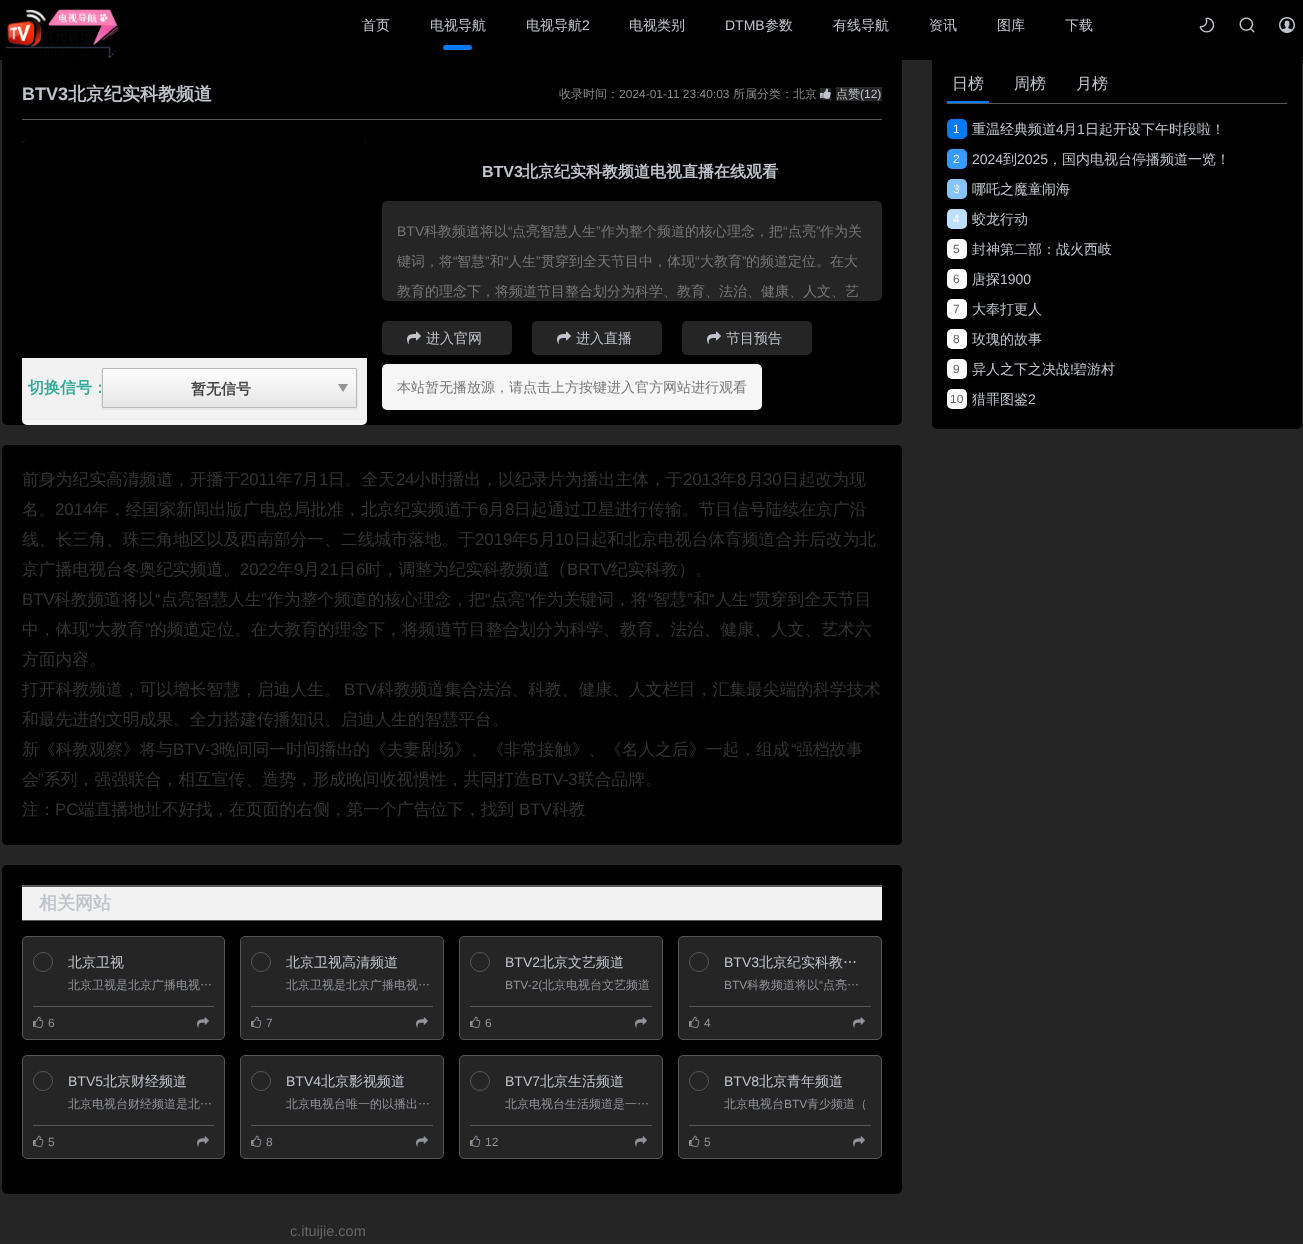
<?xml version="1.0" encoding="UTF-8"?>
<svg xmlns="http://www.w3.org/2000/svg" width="1303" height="1244">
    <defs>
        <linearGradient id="g1" gradientUnits="userSpaceOnUse" x1="230" y1="369" x2="230" y2="407"><stop offset="0" stop-color="#FFFFFF"/><stop offset="1" stop-color="#E5E5E5"/></linearGradient>
    </defs>
    <rect width="100%" height="100%" fill="#252525"/>
    <rect x="2" y="54" width="900" height="371" rx="5" fill="#000000"/>
    <rect x="932" y="54" width="370" height="375" rx="5" fill="#000000"/>
    <rect x="0" y="0" width="1303" height="60" fill="#000000"/>
    <image x="5" y="9" width="114" height="49" href="img_01.png"/>
    <text x="362" y="30" font-family="WenQuanYi Zen Hei" font-size="14" font-weight="500" fill="#C0C4CC">首页</text>
    <text x="430" y="30" font-family="WenQuanYi Zen Hei" font-size="14" font-weight="500" fill="#C0C4CC">电视导航</text>
    <rect x="443" y="45" width="29" height="5" rx="2.5" fill="#007BF5"/>
    <text x="526" y="30" font-family="WenQuanYi Zen Hei" font-size="14" font-weight="500" fill="#C0C4CC">电视导航</text>
    <text x="582" y="30" font-family="Liberation Sans" font-size="14" fill="#C0C4CC">2</text>
    <text x="629" y="30" font-family="WenQuanYi Zen Hei" font-size="14" font-weight="500" fill="#C0C4CC">电视类别</text>
    <text x="725" y="30" font-family="Liberation Sans" font-size="14" fill="#C0C4CC">DTMB</text>
    <text x="765" y="30" font-family="WenQuanYi Zen Hei" font-size="14" font-weight="500" fill="#C0C4CC">参数</text>
    <text x="833" y="30" font-family="WenQuanYi Zen Hei" font-size="14" font-weight="500" fill="#C0C4CC">有线导航</text>
    <text x="929" y="30" font-family="WenQuanYi Zen Hei" font-size="14" font-weight="500" fill="#C0C4CC">资讯</text>
    <text x="997" y="30" font-family="WenQuanYi Zen Hei" font-size="14" font-weight="500" fill="#C0C4CC">图库</text>
    <text x="1065" y="30" font-family="WenQuanYi Zen Hei" font-size="14" font-weight="500" fill="#C0C4CC">下载</text>
    <image x="1199" y="17" width="16" height="16" href="img_02.png"/>
    <image x="1239" y="17" width="16" height="16" href="img_03.png"/>
    <image x="1279" y="17" width="16" height="16" href="img_04.png"/>
    <rect x="22" y="119" width="860" height="1" fill="#565656"/>
    <text x="22" y="100" font-family="Liberation Sans" font-size="18" font-weight="700" fill="#C0C4CC">BTV3</text>
    <text x="68" y="100" font-family="WenQuanYi Zen Hei" font-size="18" font-weight="700" fill="#C0C4CC">北京纪实科教频道</text>
    <text x="559" y="98" font-family="WenQuanYi Zen Hei" font-size="12" font-weight="500" fill="#888888">收录时间：</text>
    <text x="619" y="98" font-family="Liberation Sans" font-size="12" fill="#888888">2024-01-11 23:40:03</text>
    <text x="733" y="98" font-family="WenQuanYi Zen Hei" font-size="12" font-weight="500" fill="#888888">所属分类：北京</text>
    <rect x="820" y="88" width="11" height="12" fill="#252525"/>
    <rect x="836" y="87" width="46" height="14" fill="#252525"/>
    <image x="820" y="88" width="11" height="11" href="img_05.png"/>
    <text x="836" y="98" font-family="WenQuanYi Zen Hei" font-size="12" font-weight="500" fill="#C0C4CC">点赞</text>
    <text x="860" y="98" font-family="Liberation Sans" font-size="12" fill="#C0C4CC">(12)</text>
    <rect x="22" y="140" width="345" height="285" rx="5" fill="#F6F6F6"/>
    <path d="M 27 140 H 362 C 365 140 367 142 367 145 V 358 H 22 V 145 C 22 142 24 140 27 140 Z" fill="#000000"/>
    <image x="22" y="140" width="345" height="5" href="img_06.png"/>
    <rect x="22" y="358" width="345" height="60" fill="#F2F2F2"/>
    <rect x="22" y="418" width="345" height="2" fill="#EEEEEE"/>
    <text x="28" y="393" font-family="WenQuanYi Zen Hei" font-size="16" font-weight="700" fill="#33AA99">切换信号：</text>
    <path d="M 103 368 C 102 368 102 368 102 369 V 407 C 102 408 102 408 103 408 H 356 C 357 408 357 408 357 407 V 369 C 357 368 357 368 356 368 C 357 368 358 369 358 370 V 408 C 358 409 357 410 356 410 H 103 C 102 410 101 409 101 408 V 370 C 101 369 102 368 103 368 Z" fill="#E8E8E8"/>
    <rect x="103" y="369" width="253" height="38" fill="url(#g1)"/>
    <rect x="102.5" y="368.5" width="254" height="39" rx="0.5" fill="none" stroke="#BBBBBB"/>
    <text x="191" y="394" font-family="WenQuanYi Zen Hei" font-size="15" font-weight="700" fill="#444444">暂无信号</text>
    <path d="M 338 384 H 348 L 343 392 Z" fill="#929497"/>
    <text x="482" y="177" font-family="Liberation Sans" font-size="16" font-weight="700" fill="#C0C4CC">BTV3</text>
    <text x="522" y="177" font-family="WenQuanYi Zen Hei" font-size="16" font-weight="700" fill="#C0C4CC">北京纪实科教频道电视直播在线观看</text>
    <rect x="382" y="201" width="500" height="100" rx="5" fill="#252525"/>
    <text x="397" y="236" font-family="Liberation Sans" font-size="14" fill="#777777">BTV</text>
    <text x="424" y="236" font-family="WenQuanYi Zen Hei" font-size="14" font-weight="500" fill="#777777">科教频道将以</text>
    <text x="508" y="236" font-family="Liberation Sans" font-size="14" fill="#777777">“</text>
    <text x="512" y="236" font-family="WenQuanYi Zen Hei" font-size="14" font-weight="500" fill="#777777">点亮智慧人生</text>
    <text x="596" y="236" font-family="Liberation Sans" font-size="14" fill="#777777">”</text>
    <text x="601" y="236" font-family="WenQuanYi Zen Hei" font-size="14" font-weight="500" fill="#777777">作为整个频道的核心理念，把</text>
    <text x="783" y="236" font-family="Liberation Sans" font-size="14" fill="#777777">“</text>
    <text x="788" y="236" font-family="WenQuanYi Zen Hei" font-size="14" font-weight="500" fill="#777777">点亮</text>
    <text x="816" y="236" font-family="Liberation Sans" font-size="14" fill="#777777">”</text>
    <text x="820" y="236" font-family="WenQuanYi Zen Hei" font-size="14" font-weight="500" fill="#777777">作为关</text>
    <text x="397" y="266" font-family="WenQuanYi Zen Hei" font-size="14" font-weight="500" fill="#777777">键词，将</text>
    <text x="453" y="266" font-family="Liberation Sans" font-size="14" fill="#777777">“</text>
    <text x="457" y="266" font-family="WenQuanYi Zen Hei" font-size="14" font-weight="500" fill="#777777">智慧</text>
    <text x="485" y="266" font-family="Liberation Sans" font-size="14" fill="#777777">”</text>
    <text x="490" y="266" font-family="WenQuanYi Zen Hei" font-size="14" font-weight="500" fill="#777777">和</text>
    <text x="504" y="266" font-family="Liberation Sans" font-size="14" fill="#777777">“</text>
    <text x="508" y="266" font-family="WenQuanYi Zen Hei" font-size="14" font-weight="500" fill="#777777">人生</text>
    <text x="536" y="266" font-family="Liberation Sans" font-size="14" fill="#777777">”</text>
    <text x="541" y="266" font-family="WenQuanYi Zen Hei" font-size="14" font-weight="500" fill="#777777">贯穿到全天节目中，体现</text>
    <text x="695" y="266" font-family="Liberation Sans" font-size="14" fill="#777777">“</text>
    <text x="700" y="266" font-family="WenQuanYi Zen Hei" font-size="14" font-weight="500" fill="#777777">大教育</text>
    <text x="742" y="266" font-family="Liberation Sans" font-size="14" fill="#777777">”</text>
    <text x="746" y="266" font-family="WenQuanYi Zen Hei" font-size="14" font-weight="500" fill="#777777">的频道定位。在大</text>
    <text x="397" y="296" font-family="WenQuanYi Zen Hei" font-size="14" font-weight="500" fill="#777777">教育的理念下，将频道节目整合划分为科学、教育、法治、健康、人文、艺</text>
    <rect x="382" y="321" width="130" height="34" rx="5" fill="#252525"/>
    <image x="407" y="331" width="14" height="13" href="img_07.png"/>
    <text x="426" y="343" font-family="WenQuanYi Zen Hei" font-size="14" font-weight="500" fill="#C0C4CC">进入官网</text>
    <rect x="532" y="321" width="130" height="34" rx="5" fill="#252525"/>
    <image x="557" y="331" width="14" height="13" href="img_07.png"/>
    <text x="576" y="343" font-family="WenQuanYi Zen Hei" font-size="14" font-weight="500" fill="#C0C4CC">进入直播</text>
    <rect x="682" y="321" width="130" height="34" rx="5" fill="#252525"/>
    <image x="707" y="331" width="14" height="13" href="img_07.png"/>
    <text x="726" y="343" font-family="WenQuanYi Zen Hei" font-size="14" font-weight="500" fill="#C0C4CC">节目预告</text>
    <rect x="382" y="364" width="380" height="46" rx="5" fill="#F6F6F6"/>
    <text x="397" y="392" font-family="WenQuanYi Zen Hei" font-size="14" font-weight="500" fill="#777777">本站暂无播放源，请点击上方按键进入官方网站进行观看</text>
    <rect x="2" y="445" width="900" height="400" rx="5" fill="#000000"/>
    <text x="22" y="485" font-family="WenQuanYi Zen Hei" font-size="16.8" font-weight="500" fill="#333333">前身为纪实高清频道，开播于</text>
    <text x="240" y="485" font-family="Liberation Sans" font-size="16.8" fill="#333333">2011</text>
    <text x="276" y="485" font-family="WenQuanYi Zen Hei" font-size="16.8" font-weight="500" fill="#333333">年</text>
    <text x="293" y="485" font-family="Liberation Sans" font-size="16.8" fill="#333333">7</text>
    <text x="302" y="485" font-family="WenQuanYi Zen Hei" font-size="16.8" font-weight="500" fill="#333333">月</text>
    <text x="319" y="485" font-family="Liberation Sans" font-size="16.8" fill="#333333">1</text>
    <text x="328" y="485" font-family="WenQuanYi Zen Hei" font-size="16.8" font-weight="500" fill="#333333">日。全天</text>
    <text x="396" y="485" font-family="Liberation Sans" font-size="16.8" fill="#333333">24</text>
    <text x="414" y="485" font-family="WenQuanYi Zen Hei" font-size="16.8" font-weight="500" fill="#333333">小时播出，以纪录片为播出主体，于</text>
    <text x="683" y="485" font-family="Liberation Sans" font-size="16.8" fill="#333333">2013</text>
    <text x="720" y="485" font-family="WenQuanYi Zen Hei" font-size="16.8" font-weight="500" fill="#333333">年</text>
    <text x="737" y="485" font-family="Liberation Sans" font-size="16.8" fill="#333333">8</text>
    <text x="747" y="485" font-family="WenQuanYi Zen Hei" font-size="16.8" font-weight="500" fill="#333333">月</text>
    <text x="763" y="485" font-family="Liberation Sans" font-size="16.8" fill="#333333">30</text>
    <text x="782" y="485" font-family="WenQuanYi Zen Hei" font-size="16.8" font-weight="500" fill="#333333">日起改为现</text>
    <text x="22" y="515" font-family="WenQuanYi Zen Hei" font-size="16.8" font-weight="500" fill="#333333">名。</text>
    <text x="55" y="515" font-family="Liberation Sans" font-size="16.8" fill="#333333">2014</text>
    <text x="92" y="515" font-family="WenQuanYi Zen Hei" font-size="16.8" font-weight="500" fill="#333333">年，经国家新闻出版广电总局批准，北京纪实频道于</text>
    <text x="479" y="515" font-family="Liberation Sans" font-size="16.8" fill="#333333">6</text>
    <text x="488" y="515" font-family="WenQuanYi Zen Hei" font-size="16.8" font-weight="500" fill="#333333">月</text>
    <text x="505" y="515" font-family="Liberation Sans" font-size="16.8" fill="#333333">8</text>
    <text x="514" y="515" font-family="WenQuanYi Zen Hei" font-size="16.8" font-weight="500" fill="#333333">日起通过卫星进行传输。节目信号陆续在京广沿</text>
    <text x="22" y="545" font-family="WenQuanYi Zen Hei" font-size="16.8" font-weight="500" fill="#333333">线、长三角、珠三角地区以及西南部分一、二线城市落地。于</text>
    <text x="475" y="545" font-family="Liberation Sans" font-size="16.8" fill="#333333">2019</text>
    <text x="512" y="545" font-family="WenQuanYi Zen Hei" font-size="16.8" font-weight="500" fill="#333333">年</text>
    <text x="529" y="545" font-family="Liberation Sans" font-size="16.8" fill="#333333">5</text>
    <text x="539" y="545" font-family="WenQuanYi Zen Hei" font-size="16.8" font-weight="500" fill="#333333">月</text>
    <text x="555" y="545" font-family="Liberation Sans" font-size="16.8" fill="#333333">10</text>
    <text x="574" y="545" font-family="WenQuanYi Zen Hei" font-size="16.8" font-weight="500" fill="#333333">日起和北京电视台体育频道合并后改为北</text>
    <text x="22" y="575" font-family="WenQuanYi Zen Hei" font-size="16.8" font-weight="500" fill="#333333">京广播电视台冬奥纪实频道。</text>
    <text x="240" y="575" font-family="Liberation Sans" font-size="16.8" fill="#333333">2022</text>
    <text x="277" y="575" font-family="WenQuanYi Zen Hei" font-size="16.8" font-weight="500" fill="#333333">年</text>
    <text x="294" y="575" font-family="Liberation Sans" font-size="16.8" fill="#333333">9</text>
    <text x="303" y="575" font-family="WenQuanYi Zen Hei" font-size="16.8" font-weight="500" fill="#333333">月</text>
    <text x="320" y="575" font-family="Liberation Sans" font-size="16.8" fill="#333333">21</text>
    <text x="339" y="575" font-family="WenQuanYi Zen Hei" font-size="16.8" font-weight="500" fill="#333333">日</text>
    <text x="356" y="575" font-family="Liberation Sans" font-size="16.8" fill="#333333">6</text>
    <text x="365" y="575" font-family="WenQuanYi Zen Hei" font-size="16.8" font-weight="500" fill="#333333">时，调整为纪实科教频道（</text>
    <text x="567" y="575" font-family="Liberation Sans" font-size="16.8" fill="#333333">BRTV</text>
    <text x="611" y="575" font-family="WenQuanYi Zen Hei" font-size="16.8" font-weight="500" fill="#333333">纪实科教）。</text>
    <text x="22" y="605" font-family="Liberation Sans" font-size="16.8" fill="#333333">BTV</text>
    <text x="54" y="605" font-family="WenQuanYi Zen Hei" font-size="16.8" font-weight="500" fill="#333333">科教频道将以</text>
    <text x="155" y="605" font-family="Liberation Sans" font-size="16.8" fill="#333333">“</text>
    <text x="161" y="605" font-family="WenQuanYi Zen Hei" font-size="16.8" font-weight="500" fill="#333333">点亮智慧人生</text>
    <text x="261" y="605" font-family="Liberation Sans" font-size="16.8" fill="#333333">”</text>
    <text x="267" y="605" font-family="WenQuanYi Zen Hei" font-size="16.8" font-weight="500" fill="#333333">作为整个频道的核心理念，把</text>
    <text x="485" y="605" font-family="Liberation Sans" font-size="16.8" fill="#333333">“</text>
    <text x="491" y="605" font-family="WenQuanYi Zen Hei" font-size="16.8" font-weight="500" fill="#333333">点亮</text>
    <text x="525" y="605" font-family="Liberation Sans" font-size="16.8" fill="#333333">”</text>
    <text x="530" y="605" font-family="WenQuanYi Zen Hei" font-size="16.8" font-weight="500" fill="#333333">作为关键词，将</text>
    <text x="648" y="605" font-family="Liberation Sans" font-size="16.8" fill="#333333">“</text>
    <text x="653" y="605" font-family="WenQuanYi Zen Hei" font-size="16.8" font-weight="500" fill="#333333">智慧</text>
    <text x="687" y="605" font-family="Liberation Sans" font-size="16.8" fill="#333333">”</text>
    <text x="693" y="605" font-family="WenQuanYi Zen Hei" font-size="16.8" font-weight="500" fill="#333333">和</text>
    <text x="709" y="605" font-family="Liberation Sans" font-size="16.8" fill="#333333">“</text>
    <text x="715" y="605" font-family="WenQuanYi Zen Hei" font-size="16.8" font-weight="500" fill="#333333">人生</text>
    <text x="749" y="605" font-family="Liberation Sans" font-size="16.8" fill="#333333">”</text>
    <text x="754" y="605" font-family="WenQuanYi Zen Hei" font-size="16.8" font-weight="500" fill="#333333">贯穿到全天节目</text>
    <text x="22" y="635" font-family="WenQuanYi Zen Hei" font-size="16.8" font-weight="500" fill="#333333">中，体现</text>
    <text x="89" y="635" font-family="Liberation Sans" font-size="16.8" fill="#333333">“</text>
    <text x="94" y="635" font-family="WenQuanYi Zen Hei" font-size="16.8" font-weight="500" fill="#333333">大教育</text>
    <text x="145" y="635" font-family="Liberation Sans" font-size="16.8" fill="#333333">”</text>
    <text x="150" y="635" font-family="WenQuanYi Zen Hei" font-size="16.8" font-weight="500" fill="#333333">的频道定位。在大教育的理念下，将频道节目整合划分为科学、教育、法治、健康、人文、艺术六</text>
    <text font-family="WenQuanYi Zen Hei" font-size="16.8" font-weight="500" fill="#333333">
        <tspan x="22" y="665">方面内容。</tspan>
        <tspan x="22" y="695">打开科教频道，可以增长智慧，启迪人生。</tspan>
    </text>
    <text x="344" y="695" font-family="Liberation Sans" font-size="16.8" fill="#333333">BTV</text>
    <text x="377" y="695" font-family="WenQuanYi Zen Hei" font-size="16.8" font-weight="500" fill="#333333">科教频道集合法治、科教、健康、人文栏目，汇集最尖端的科学技术</text>
    <text font-family="WenQuanYi Zen Hei" font-size="16.8" font-weight="500" fill="#333333">
        <tspan x="22" y="725">和最先进的文明成果。全力搭建传播知识、启迪人生的智慧平台。</tspan>
        <tspan x="22" y="755">新《科教观察》将与</tspan>
    </text>
    <text x="173" y="755" font-family="Liberation Sans" font-size="16.8" fill="#333333">BTV-3</text>
    <text x="219" y="755" font-family="WenQuanYi Zen Hei" font-size="16.8" font-weight="500" fill="#333333">晚间同一时间播出的《夫妻剧场》、《非常接触》、《名人之后》一起，组成</text>
    <text x="791" y="755" font-family="Liberation Sans" font-size="16.8" fill="#333333">“</text>
    <text x="796" y="755" font-family="WenQuanYi Zen Hei" font-size="16.8" font-weight="500" fill="#333333">强档故事</text>
    <text x="22" y="785" font-family="WenQuanYi Zen Hei" font-size="16.8" font-weight="500" fill="#333333">会</text>
    <text x="38" y="785" font-family="Liberation Sans" font-size="16.8" fill="#333333">”</text>
    <text x="44" y="785" font-family="WenQuanYi Zen Hei" font-size="16.8" font-weight="500" fill="#333333">系列，强强联合，相互宣传、造势，形成晚间收视惯性，共同打造</text>
    <text x="531" y="785" font-family="Liberation Sans" font-size="16.8" fill="#333333">BTV-3</text>
    <text x="578" y="785" font-family="WenQuanYi Zen Hei" font-size="16.8" font-weight="500" fill="#333333">联合品牌。</text>
    <text x="22" y="815" font-family="WenQuanYi Zen Hei" font-size="16.8" font-weight="500" fill="#333333">注：</text>
    <text x="55" y="815" font-family="Liberation Sans" font-size="16.8" fill="#333333">PC</text>
    <text x="78" y="815" font-family="WenQuanYi Zen Hei" font-size="16.8" font-weight="500" fill="#333333">端直播地址不好找，在页面的右侧，第一个广告位下，找到</text>
    <text x="519" y="815" font-family="Liberation Sans" font-size="16.8" fill="#333333">BTV</text>
    <text x="552" y="815" font-family="WenQuanYi Zen Hei" font-size="16.8" font-weight="500" fill="#333333">科教</text>
    <rect x="2" y="865" width="900" height="329" rx="5" fill="#000000"/>
    <rect x="22" y="887" width="860" height="33" fill="#F2F2F2"/>
    <rect x="22" y="885" width="860" height="2" fill="#565656"/>
    <rect x="22" y="920" width="860" height="1" fill="#565656"/>
    <text x="39" y="909" font-family="WenQuanYi Zen Hei" font-size="18" font-weight="700" fill="#C0C4CC">相关网站</text>
    <rect x="22.5" y="936.5" width="202" height="103" rx="4.5" fill="#252525" stroke="#565656"/>
    <rect x="33" y="1006" width="181" height="1" fill="#565656"/>
    <circle cx="43" cy="962" r="9.5" fill="none" stroke="#565656"/>
    <text x="68" y="967" font-family="WenQuanYi Zen Hei" font-size="14" font-weight="500" fill="#C0C4CC">北京卫视</text>
    <text x="68" y="989" font-family="WenQuanYi Zen Hei" font-size="12" font-weight="500" fill="#909399">北京卫视是北京广播电视…</text>
    <image x="33" y="1016" width="11" height="12" href="img_08.png"/>
    <text x="48" y="1027" font-family="Liberation Sans" font-size="12" fill="#909399">6</text>
    <image x="197" y="1017" width="12" height="11" href="img_09.png"/>
    <rect x="240.5" y="936.5" width="203" height="103" rx="4.5" fill="#252525" stroke="#565656"/>
    <rect x="251" y="1006" width="182" height="1" fill="#565656"/>
    <circle cx="261" cy="962" r="9.5" fill="none" stroke="#565656"/>
    <text x="286" y="967" font-family="WenQuanYi Zen Hei" font-size="14" font-weight="500" fill="#C0C4CC">北京卫视高清频道</text>
    <text x="286" y="989" font-family="WenQuanYi Zen Hei" font-size="12" font-weight="500" fill="#909399">北京卫视是北京广播电视…</text>
    <image x="251" y="1016" width="11" height="12" href="img_08.png"/>
    <text x="266" y="1027" font-family="Liberation Sans" font-size="12" fill="#909399">7</text>
    <image x="416" y="1017" width="12" height="11" href="img_09.png"/>
    <rect x="459.5" y="936.5" width="203" height="103" rx="4.5" fill="#252525" stroke="#565656"/>
    <rect x="470" y="1006" width="182" height="1" fill="#565656"/>
    <circle cx="480" cy="962" r="9.5" fill="none" stroke="#565656"/>
    <text x="505" y="967" font-family="Liberation Sans" font-size="14" fill="#C0C4CC">BTV2</text>
    <text x="540" y="967" font-family="WenQuanYi Zen Hei" font-size="14" font-weight="500" fill="#C0C4CC">北京文艺频道</text>
    <text x="505" y="989" font-family="Liberation Sans" font-size="12" fill="#909399">BTV-2(</text>
    <text x="542" y="989" font-family="WenQuanYi Zen Hei" font-size="12" font-weight="500" fill="#909399">北京电视台文艺频道</text>
    <image x="470" y="1016" width="11" height="12" href="img_08.png"/>
    <text x="485" y="1027" font-family="Liberation Sans" font-size="12" fill="#909399">6</text>
    <image x="635" y="1017" width="12" height="11" href="img_09.png"/>
    <rect x="678.5" y="936.5" width="203" height="103" rx="4.5" fill="#252525" stroke="#565656"/>
    <rect x="689" y="1006" width="182" height="1" fill="#565656"/>
    <circle cx="699" cy="962" r="9.5" fill="none" stroke="#565656"/>
    <text x="724" y="967" font-family="Liberation Sans" font-size="14" fill="#C0C4CC">BTV3</text>
    <text x="759" y="967" font-family="WenQuanYi Zen Hei" font-size="14" font-weight="500" fill="#C0C4CC">北京纪实科教…</text>
    <text x="724" y="989" font-family="Liberation Sans" font-size="12" fill="#909399">BTV</text>
    <text x="747" y="989" font-family="WenQuanYi Zen Hei" font-size="12" font-weight="500" fill="#909399">科教频道将以</text>
    <text x="819" y="989" font-family="Liberation Sans" font-size="12" fill="#909399">“</text>
    <text x="823" y="989" font-family="WenQuanYi Zen Hei" font-size="12" font-weight="500" fill="#909399">点亮…</text>
    <image x="689" y="1016" width="11" height="12" href="img_08.png"/>
    <text x="704" y="1027" font-family="Liberation Sans" font-size="12" fill="#909399">4</text>
    <image x="853" y="1017" width="12" height="11" href="img_09.png"/>
    <rect x="22.5" y="1055.5" width="202" height="103" rx="4.5" fill="#252525" stroke="#565656"/>
    <rect x="33" y="1125" width="181" height="1" fill="#565656"/>
    <circle cx="43" cy="1081" r="9.5" fill="none" stroke="#565656"/>
    <text x="68" y="1086" font-family="Liberation Sans" font-size="14" fill="#C0C4CC">BTV5</text>
    <text x="103" y="1086" font-family="WenQuanYi Zen Hei" font-size="14" font-weight="500" fill="#C0C4CC">北京财经频道</text>
    <text x="68" y="1108" font-family="WenQuanYi Zen Hei" font-size="12" font-weight="500" fill="#909399">北京电视台财经频道是北…</text>
    <image x="33" y="1135" width="11" height="12" href="img_08.png"/>
    <text x="48" y="1146" font-family="Liberation Sans" font-size="12" fill="#909399">5</text>
    <image x="197" y="1136" width="12" height="11" href="img_09.png"/>
    <rect x="240.5" y="1055.5" width="203" height="103" rx="4.5" fill="#252525" stroke="#565656"/>
    <rect x="251" y="1125" width="182" height="1" fill="#565656"/>
    <circle cx="261" cy="1081" r="9.5" fill="none" stroke="#565656"/>
    <text x="286" y="1086" font-family="Liberation Sans" font-size="14" fill="#C0C4CC">BTV4</text>
    <text x="321" y="1086" font-family="WenQuanYi Zen Hei" font-size="14" font-weight="500" fill="#C0C4CC">北京影视频道</text>
    <text x="286" y="1108" font-family="WenQuanYi Zen Hei" font-size="12" font-weight="500" fill="#909399">北京电视台唯一的以播出…</text>
    <image x="251" y="1135" width="11" height="12" href="img_08.png"/>
    <text x="266" y="1146" font-family="Liberation Sans" font-size="12" fill="#909399">8</text>
    <image x="416" y="1136" width="12" height="11" href="img_09.png"/>
    <rect x="459.5" y="1055.5" width="203" height="103" rx="4.5" fill="#252525" stroke="#565656"/>
    <rect x="470" y="1125" width="182" height="1" fill="#565656"/>
    <circle cx="480" cy="1081" r="9.5" fill="none" stroke="#565656"/>
    <text x="505" y="1086" font-family="Liberation Sans" font-size="14" fill="#C0C4CC">BTV7</text>
    <text x="540" y="1086" font-family="WenQuanYi Zen Hei" font-size="14" font-weight="500" fill="#C0C4CC">北京生活频道</text>
    <text x="505" y="1108" font-family="WenQuanYi Zen Hei" font-size="12" font-weight="500" fill="#909399">北京电视台生活频道是一…</text>
    <image x="470" y="1135" width="11" height="12" href="img_08.png"/>
    <text x="485" y="1146" font-family="Liberation Sans" font-size="12" fill="#909399">12</text>
    <image x="635" y="1136" width="12" height="11" href="img_09.png"/>
    <rect x="678.5" y="1055.5" width="203" height="103" rx="4.5" fill="#252525" stroke="#565656"/>
    <rect x="689" y="1125" width="182" height="1" fill="#565656"/>
    <circle cx="699" cy="1081" r="9.5" fill="none" stroke="#565656"/>
    <text x="724" y="1086" font-family="Liberation Sans" font-size="14" fill="#C0C4CC">BTV8</text>
    <text x="759" y="1086" font-family="WenQuanYi Zen Hei" font-size="14" font-weight="500" fill="#C0C4CC">北京青年频道</text>
    <text x="724" y="1108" font-family="WenQuanYi Zen Hei" font-size="12" font-weight="500" fill="#909399">北京电视台</text>
    <text x="784" y="1108" font-family="Liberation Sans" font-size="12" fill="#909399">BTV</text>
    <text x="807" y="1108" font-family="WenQuanYi Zen Hei" font-size="12" font-weight="500" fill="#909399">青少频道（</text>
    <image x="689" y="1135" width="11" height="12" href="img_08.png"/>
    <text x="704" y="1146" font-family="Liberation Sans" font-size="12" fill="#909399">5</text>
    <image x="853" y="1136" width="12" height="11" href="img_09.png"/>
    <rect x="947" y="103" width="340" height="1" fill="#565656"/>
    <rect x="947" y="101" width="42" height="2" fill="#007BF5"/>
    <text x="952" y="89" font-family="WenQuanYi Zen Hei" font-size="16" font-weight="500" fill="#C0C4CC">日榜</text>
    <text x="1014" y="89" font-family="WenQuanYi Zen Hei" font-size="16" font-weight="500" fill="#C0C4CC">周榜</text>
    <text x="1076" y="89" font-family="WenQuanYi Zen Hei" font-size="16" font-weight="500" fill="#C0C4CC">月榜</text>
    <rect x="947" y="119" width="20" height="20" rx="5" fill="#007BF5"/>
    <text x="953" y="133" font-family="Liberation Sans" font-size="12" fill="#FFFFFF">1</text>
    <text x="972" y="134" font-family="WenQuanYi Zen Hei" font-size="14" font-weight="500" fill="#C0C4CC">重温经典频道</text>
    <text x="1056" y="134" font-family="Liberation Sans" font-size="14" fill="#C0C4CC">4</text>
    <text x="1063" y="134" font-family="WenQuanYi Zen Hei" font-size="14" font-weight="500" fill="#C0C4CC">月</text>
    <text x="1077" y="134" font-family="Liberation Sans" font-size="14" fill="#C0C4CC">1</text>
    <text x="1085" y="134" font-family="WenQuanYi Zen Hei" font-size="14" font-weight="500" fill="#C0C4CC">日起开设下午时段啦！</text>
    <rect x="947" y="149" width="20" height="20" rx="5" fill="#389CFF"/>
    <text x="953" y="163" font-family="Liberation Sans" font-size="12" fill="#FFFFFF">2</text>
    <text x="972" y="164" font-family="Liberation Sans" font-size="14" fill="#C0C4CC">2024</text>
    <text x="1003" y="164" font-family="WenQuanYi Zen Hei" font-size="14" font-weight="500" fill="#C0C4CC">到</text>
    <text x="1017" y="164" font-family="Liberation Sans" font-size="14" fill="#C0C4CC">2025</text>
    <text x="1048" y="164" font-family="WenQuanYi Zen Hei" font-size="14" font-weight="500" fill="#C0C4CC">，国内电视台停播频道一览！</text>
    <rect x="947" y="179" width="20" height="20" rx="5" fill="#87C3FF"/>
    <text x="953" y="193" font-family="Liberation Sans" font-size="12" fill="#FFFFFF">3</text>
    <text x="972" y="194" font-family="WenQuanYi Zen Hei" font-size="14" font-weight="500" fill="#C0C4CC">哪吒之魔童闹海</text>
    <rect x="947" y="209" width="20" height="20" rx="5" fill="#BEDFFF"/>
    <text x="953" y="223" font-family="Liberation Sans" font-size="12" fill="#FFFFFF">4</text>
    <text x="972" y="224" font-family="WenQuanYi Zen Hei" font-size="14" font-weight="500" fill="#C0C4CC">蛟龙行动</text>
    <rect x="947" y="239" width="20" height="20" rx="5" fill="#FBFBFB"/>
    <text x="953" y="253" font-family="Liberation Sans" font-size="12" fill="#666666">5</text>
    <text x="972" y="254" font-family="WenQuanYi Zen Hei" font-size="14" font-weight="500" fill="#C0C4CC">封神第二部：战火西岐</text>
    <rect x="947" y="269" width="20" height="20" rx="5" fill="#FBFBFB"/>
    <text x="953" y="283" font-family="Liberation Sans" font-size="12" fill="#666666">6</text>
    <text x="972" y="284" font-family="WenQuanYi Zen Hei" font-size="14" font-weight="500" fill="#C0C4CC">唐探</text>
    <text x="1000" y="284" font-family="Liberation Sans" font-size="14" fill="#C0C4CC">1900</text>
    <rect x="947" y="299" width="20" height="20" rx="5" fill="#FBFBFB"/>
    <text x="953" y="313" font-family="Liberation Sans" font-size="12" fill="#666666">7</text>
    <text x="972" y="314" font-family="WenQuanYi Zen Hei" font-size="14" font-weight="500" fill="#C0C4CC">大奉打更人</text>
    <rect x="947" y="329" width="20" height="20" rx="5" fill="#FBFBFB"/>
    <text x="953" y="343" font-family="Liberation Sans" font-size="12" fill="#666666">8</text>
    <text x="972" y="344" font-family="WenQuanYi Zen Hei" font-size="14" font-weight="500" fill="#C0C4CC">玫瑰的故事</text>
    <rect x="947" y="359" width="20" height="20" rx="5" fill="#FBFBFB"/>
    <text x="953" y="373" font-family="Liberation Sans" font-size="12" fill="#666666">9</text>
    <text x="972" y="374" font-family="WenQuanYi Zen Hei" font-size="14" font-weight="500" fill="#C0C4CC">异人之下之决战</text>
    <text x="1070" y="374" font-family="Liberation Sans" font-size="14" fill="#C0C4CC">!</text>
    <text x="1073" y="374" font-family="WenQuanYi Zen Hei" font-size="14" font-weight="500" fill="#C0C4CC">碧游村</text>
    <rect x="947" y="389" width="20" height="20" rx="5" fill="#FBFBFB"/>
    <text x="950" y="403" font-family="Liberation Sans" font-size="12" fill="#666666">10</text>
    <text x="972" y="404" font-family="WenQuanYi Zen Hei" font-size="14" font-weight="500" fill="#C0C4CC">猎罪图鉴</text>
    <text x="1028" y="404" font-family="Liberation Sans" font-size="14" fill="#C0C4CC">2</text>
    <text x="290" y="1236" font-family="Liberation Sans" font-size="14.5" fill="#666666">c.ituijie.com</text>
</svg>
